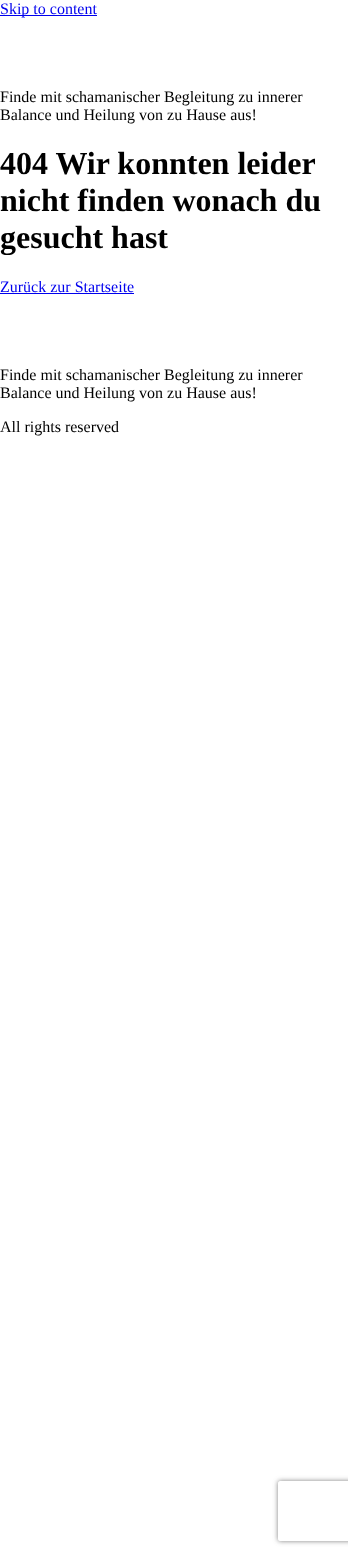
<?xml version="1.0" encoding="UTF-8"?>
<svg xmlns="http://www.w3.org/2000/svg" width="348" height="1555">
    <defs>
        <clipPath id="clip1"><path d="M 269 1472 H 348 V 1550 H 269 Z M 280 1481 H 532 C 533 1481 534 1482 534 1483 V 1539 C 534 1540 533 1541 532 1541 H 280 C 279 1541 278 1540 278 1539 V 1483 C 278 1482 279 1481 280 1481 Z" clip-rule="evenodd"/></clipPath>
        <filter id="blur1" x="-50%" y="-200%" width="200%" height="500%"><feGaussianBlur stdDeviation="2.5"/></filter>
    </defs>
    <rect width="100%" height="100%" fill="#FFFFFF"/>
    <rect x="0" y="15" width="97" height="1" fill="#0000EE"/>
    <text x="0" y="14" font-family="Liberation Serif" font-size="16" fill="#0000EE">Skip to content</text>
    <text font-family="Liberation Serif" font-size="16" fill="#000000">
        <tspan x="0" y="102">Finde mit schamanischer Begleitung zu innerer</tspan>
        <tspan x="0" y="120">Balance und Heilung von zu Hause aus!</tspan>
    </text>
    <text font-family="Liberation Serif" font-size="32" font-weight="700" fill="#000000">
        <tspan x="0" y="174">404 Wir konnten leider</tspan>
        <tspan x="0" y="211">nicht finden wonach du</tspan>
        <tspan x="0" y="248">gesucht hast</tspan>
    </text>
    <text x="0" y="292" font-family="Liberation Serif" font-size="16" fill="#0000EE">Zurück zur Startseite</text>
    <rect x="0" y="293" width="134" height="1" fill="#0000EE"/>
    <text font-family="Liberation Serif" font-size="16" fill="#000000">
        <tspan x="0" y="380">Finde mit schamanischer Begleitung zu innerer</tspan>
        <tspan x="0" y="398">Balance und Heilung von zu Hause aus!</tspan>
    </text>
    <text x="0" y="432" font-family="Liberation Serif" font-size="16" fill="#000000">All rights reserved</text>
    <g clip-path="url(#clip1)">
        <rect x="278" y="1481" width="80" height="60" rx="2" fill="#808080" filter="url(#blur1)"/>
    </g>
</svg>
